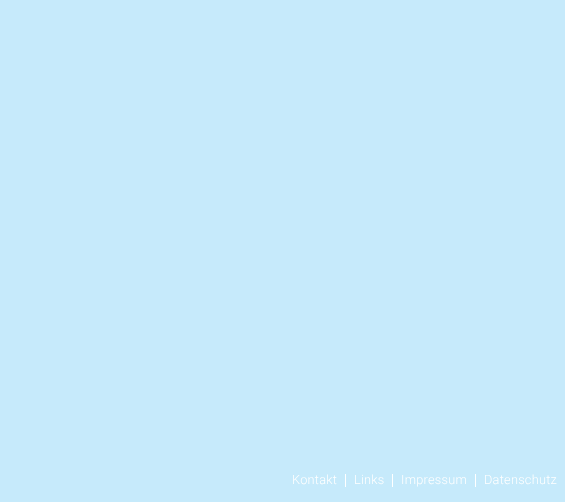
<?xml version="1.0" encoding="UTF-8"?>
<svg xmlns="http://www.w3.org/2000/svg" width="565" height="502">
    <rect width="100%" height="100%" fill="#C6EAFB"/>
    <text x="292" y="484" font-family="Roboto" font-size="12.75" font-weight="300" letter-spacing="0.25" fill="#FFFFFF">Kontakt</text>
    <rect x="345" y="474" width="1" height="13" fill="#FFFFFF"/>
    <text x="354" y="484" font-family="Roboto" font-size="12.75" font-weight="300" letter-spacing="0.25" fill="#FFFFFF">Links</text>
    <rect x="392" y="474" width="1" height="13" fill="#FFFFFF"/>
    <text x="401" y="484" font-family="Roboto" font-size="12.75" font-weight="300" letter-spacing="0.25" fill="#FFFFFF">Impressum</text>
    <rect x="475" y="474" width="1" height="13" fill="#FFFFFF"/>
    <text x="484" y="484" font-family="Roboto" font-size="12.75" font-weight="300" letter-spacing="0.25" fill="#FFFFFF">Datenschutz</text>
</svg>
